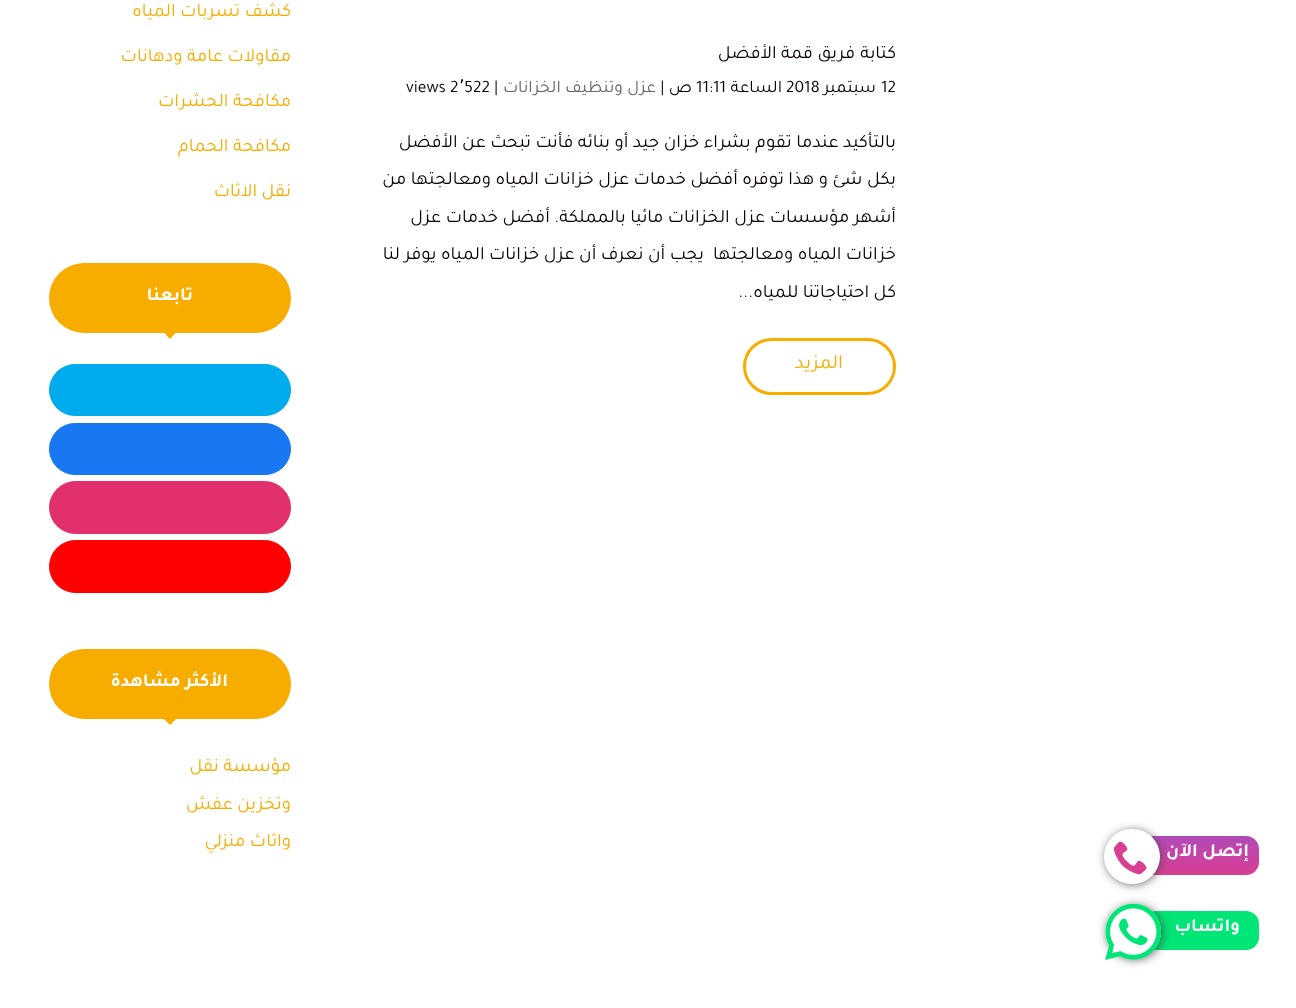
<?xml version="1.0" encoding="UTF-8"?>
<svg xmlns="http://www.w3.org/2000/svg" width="1296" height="1008">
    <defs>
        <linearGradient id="g1" gradientUnits="userSpaceOnUse" x1="1200" y1="875" x2="1200" y2="836"><stop offset="0" stop-color="#D83F91"/><stop offset="0.25" stop-color="#D0409B"/><stop offset="0.5" stop-color="#C743A5"/><stop offset="0.75" stop-color="#BB47AF"/><stop offset="1" stop-color="#AE4BB8"/></linearGradient>
        <filter id="blur1" x="-50%" y="-200%" width="200%" height="500%"><feGaussianBlur stdDeviation="4"/></filter>
    </defs>
    <rect width="100%" height="100%" fill="#FFFFFF"/>
    <text x="896" y="58" font-family="Tajawal" font-size="18.75" direction="rtl" fill="#0C000C">كتابة</text>
    <text x="855" y="58" font-family="Tajawal" font-size="18.75" direction="rtl" fill="#0C000C">فريق قمة الأفضل</text>
    <text x="881" y="92" font-family="Tajawal" font-size="17.5" fill="#0C000C">12</text>
    <text x="876" y="92" font-family="Tajawal" font-size="17.5" direction="rtl" fill="#0C000C">سبتمبر</text>
    <text x="786" y="92" font-family="Tajawal" font-size="17.5" fill="#0C000C">2018</text>
    <text x="782" y="92" font-family="Tajawal" font-size="17.5" direction="rtl" fill="#0C000C">الساعة</text>
    <text x="696" y="92" font-family="Tajawal" font-size="17.5" fill="#0C000C">11:11</text>
    <text x="692" y="92" font-family="Tajawal" font-size="17.5" direction="rtl" fill="#0C000C">ص |</text>
    <text x="656" y="92" font-family="Tajawal" font-size="17.5" direction="rtl" fill="#666666">عزل وتنظيف الخزانات</text>
    <text x="494" y="92" font-family="Tajawal" font-size="17.5" fill="#0C000C">|</text>
    <text x="464" y="92" font-family="Tajawal" font-size="17.5" fill="#0C000C">522</text>
    <text x="459" y="92" font-family="DejaVu Sans" font-size="17.5" fill="#0C000C">٬</text>
    <text x="406" y="92" font-family="Tajawal" font-size="17.5" fill="#0C000C">views 2</text>
    <text font-family="Tajawal" font-size="18.75" direction="rtl" fill="#0C000C">
        <tspan x="896" y="147">بالتأكيد عندما تقوم بشراء خزان جيد أو بنائه فأنت تبحث عن الأفضل</tspan>
        <tspan x="896" y="184">بكل شئ و هذا توفره أفضل خدمات عزل خزانات المياه ومعالجتها من</tspan>
    </text>
    <text font-family="Tajawal" font-size="18.75" direction="rtl" fill="#0C000C" xml:space="preserve"><tspan x="896" y="222">أشهر مؤسسات عزل الخزانات مائيا بالمملكة. أفضل خدمات عزل</tspan><tspan x="896" y="259">خزانات المياه ومعالجتها  يجب أن نعرف أن عزل خزانات المياه يوفر لنا</tspan></text>
    <text x="896" y="297" font-family="Tajawal" font-size="18.75" direction="rtl" fill="#0C000C">كل احتياجاتنا للمياه...</text>
    <rect x="744.5" y="339.5" width="150" height="54" rx="27" fill="none" stroke="#F7AD00" stroke-width="3"/>
    <text x="843" y="368" font-family="Tajawal" font-size="20" direction="rtl" fill="#F7AD00">المزيد</text>
    <text x="291" y="16" font-family="Tajawal" font-size="18.75" direction="rtl" fill="#F7AD00">كشف تسربات المياه</text>
    <text x="291" y="61" font-family="Tajawal" font-size="18.75" direction="rtl" fill="#F7AD00">مقاولات عامة ودهانات</text>
    <text x="291" y="106" font-family="Tajawal" font-size="18.75" direction="rtl" fill="#F7AD00">مكافحة الحشرات</text>
    <text x="291" y="151" font-family="Tajawal" font-size="18.75" direction="rtl" fill="#F7AD00">مكافحة الحمام</text>
    <text x="291" y="196" font-family="Tajawal" font-size="18.75" direction="rtl" fill="#F7AD00">نقل الاثاث</text>
    <rect x="49" y="263" width="242" height="70" rx="35" fill="#F7AD00"/>
    <text x="193" y="300" font-family="Tajawal" font-size="18.75" font-weight="700" direction="rtl" fill="#FFFFFF">تابعنا</text>
    <path d="M 164 332.5 H 176 L 170 339 Z" fill="#F7AD00"/>
    <rect x="49.5" y="364.5" width="241" height="51" rx="25.5" fill="#00ACED" stroke="#00ACED"/>
    <rect x="49.5" y="423.5" width="241" height="51" rx="25.5" fill="#1778F2" stroke="#1778F2"/>
    <rect x="49.5" y="481.5" width="241" height="52" rx="26" fill="#E1306C" stroke="#E1306C"/>
    <rect x="49.5" y="540.5" width="241" height="52" rx="26" fill="#FF0000" stroke="#FF0000"/>
    <rect x="49" y="649" width="242" height="70" rx="35" fill="#F7AD00"/>
    <text x="228" y="686" font-family="Tajawal" font-size="18.75" font-weight="700" direction="rtl" fill="#FFFFFF">الأكثر مشاهدة</text>
    <path d="M 164 719 H 176 L 170 725 Z" fill="#F7AD00"/>
    <text x="291" y="771" font-family="Tajawal" font-size="18.75" direction="rtl" fill="#F7AD00">مؤسسة نقل</text>
    <text font-family="Tajawal" font-size="18.75" direction="rtl" fill="#F7AD00">
        <tspan x="291" y="809">وتخزين عفش</tspan>
        <tspan x="291" y="846">واثاث منزلي</tspan>
    </text>
    <rect x="1141" y="836" width="118" height="39" rx="13" fill="url(#g1)"/>
    <text x="1249" y="856" font-family="Tajawal" font-size="18.75" font-weight="700" direction="rtl" fill="#FFFFFF">إتصل الآن</text>
    <rect x="1105" y="830" width="56" height="55" rx="27.5" fill="#444444" fill-opacity="0.71" filter="url(#blur1)"/>
    <rect x="1104" y="829" width="56" height="55" rx="27.5" fill="#FFFFFF"/>
    <image x="1114" y="841" width="33" height="34" href="img_01.png"/>
    <rect x="1143" y="911" width="116" height="39" rx="13" fill="#00E676"/>
    <text x="1240" y="931" font-family="Tajawal" font-size="18.75" font-weight="700" direction="rtl" fill="#FFFFFF">واتساب</text>
    <rect x="1106" y="905" width="57" height="55" rx="27.5" fill="#444444" fill-opacity="0.71" filter="url(#blur1)"/>
    <rect x="1105" y="904" width="56" height="55" rx="27.5" fill="#FFFFFF"/>
    <image x="1105" y="904" width="56" height="56" href="img_02.png"/>
</svg>
